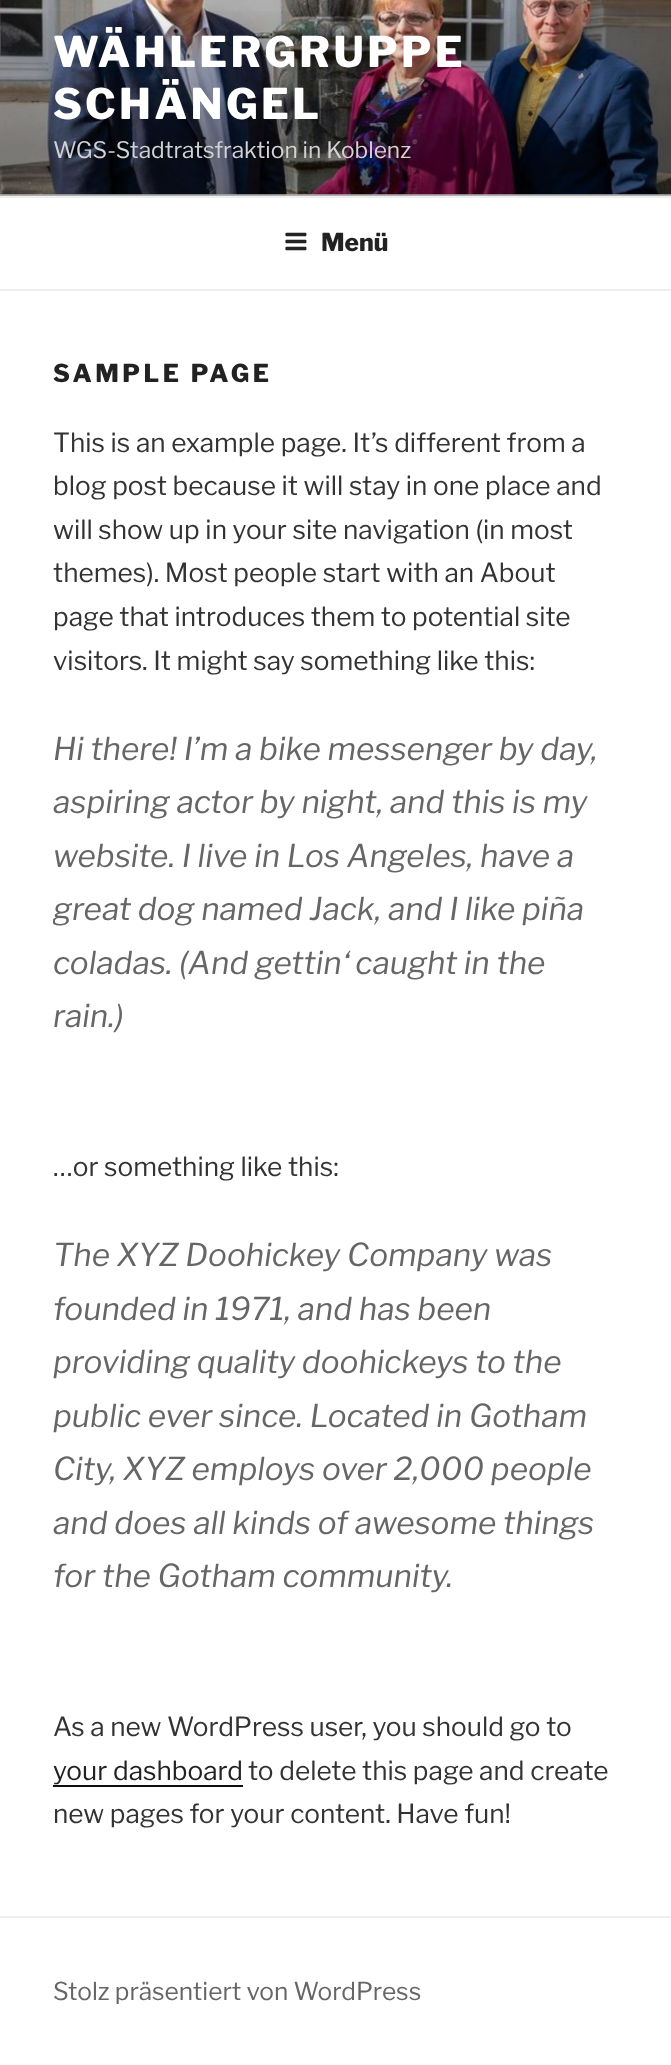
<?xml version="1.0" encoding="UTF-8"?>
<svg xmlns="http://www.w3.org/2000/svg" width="671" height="2065">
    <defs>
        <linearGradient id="g1" gradientUnits="userSpaceOnUse" x1="336" y1="0" x2="336" y2="196"><stop offset="0" stop-color="#000000" stop-opacity="0"/><stop offset="0.75" stop-color="#000000" stop-opacity="0.3"/><stop offset="1" stop-color="#000000" stop-opacity="0.3"/></linearGradient>
        <clipPath id="clip1"><rect x="53" y="723" width="567" height="369"/></clipPath>
    </defs>
    <rect width="100%" height="100%" fill="#FFFFFF"/>
    <rect x="0" y="194" width="671" height="2" fill="#FAFAFA"/>
    <image x="0" y="0" width="671" height="195" href="img_01.png"/>
    <rect x="0" y="11" width="671" height="185" fill="url(#g1)"/>
    <text font-family="Libre Franklin" font-size="42" font-weight="100" letter-spacing="3.4" fill="#FFFFFF">
        <tspan x="53" y="67">WÄHLERGRUPPE</tspan>
        <tspan x="53" y="119">SCHÄNGEL</tspan>
    </text>
    <text x="53" y="158" font-family="'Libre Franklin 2'" font-size="22.75" font-weight="100" fill="#D3D2D5">WGS-Stadtratsfraktion in Koblenz</text>
    <rect x="0" y="196" width="671" height="2" fill="#EEEEEE"/>
    <rect x="0" y="289" width="671" height="2" fill="#EEEEEE"/>
    <image x="285" y="232" width="22" height="19" href="img_02.png"/>
    <text x="321" y="251" font-family="Libre Franklin" font-size="24.5" font-weight="100" fill="#222222">Menü</text>
    <text x="53" y="382" font-family="Libre Franklin" font-size="24.5" font-weight="100" letter-spacing="3.5" fill="#222222">SAMPLE PAGE</text>
    <text font-family="'Libre Franklin 2'" font-size="26.25" font-weight="100" fill="#333333">
        <tspan x="53" y="452">This is an example page. It’s different from a</tspan>
        <tspan x="53" y="495">blog post because it will stay in one place and</tspan>
        <tspan x="53" y="539">will show up in your site navigation (in most</tspan>
        <tspan x="53" y="582">themes). Most people start with an About</tspan>
        <tspan x="53" y="626">page that introduces them to potential site</tspan>
        <tspan x="53" y="670">visitors. It might say something like this:</tspan>
    </text>
    <text font-family="Libre Franklin" font-size="31.5" font-weight="100" font-style="italic" fill="#666666">
        <tspan x="53" y="760">Hi there! I’m a bike messenger by day,</tspan>
        <tspan x="53" y="813">aspiring actor by night, and this is my</tspan>
        <tspan x="53" y="867">website. I live in Los Angeles, have a</tspan>
    </text>
    <g clip-path="url(#clip1)">
        <text x="53" y="920" font-family="Libre Franklin" font-size="31.5" font-weight="100" font-style="italic" fill="#666666">great dog named Jack, and I like piña</text>
    </g>
    <text font-family="Libre Franklin" font-size="31.5" font-weight="100" font-style="italic" fill="#666666">
        <tspan x="53" y="974">coladas. (And gettin‘ caught in the</tspan>
        <tspan x="53" y="1027">rain.)</tspan>
    </text>
    <text x="53" y="1176" font-family="'Libre Franklin 2'" font-size="26.25" font-weight="100" fill="#333333">…or something like this:</text>
    <text font-family="Libre Franklin" font-size="31.5" font-weight="100" font-style="italic" fill="#666666">
        <tspan x="53" y="1266">The XYZ Doohickey Company was</tspan>
        <tspan x="53" y="1320">founded in 1971, and has been</tspan>
        <tspan x="53" y="1373">providing quality doohickeys to the</tspan>
        <tspan x="53" y="1427">public ever since. Located in Gotham</tspan>
        <tspan x="53" y="1480">City, XYZ employs over 2,000 people</tspan>
        <tspan x="53" y="1534">and does all kinds of awesome things</tspan>
        <tspan x="53" y="1587">for the Gotham community.</tspan>
    </text>
    <text x="53" y="1736" font-family="'Libre Franklin 2'" font-size="26.25" font-weight="100" fill="#333333">As a new WordPress user, you should go to</text>
    <text x="53" y="1780" font-family="'Libre Franklin 2'" font-size="26.25" font-weight="100" fill="#222222">your dashboard</text>
    <rect x="53" y="1785" width="190" height="2" fill="#0F0F0F"/>
    <text x="248" y="1780" font-family="'Libre Franklin 2'" font-size="26.25" font-weight="100" fill="#333333">to delete this page and create</text>
    <text x="53" y="1823" font-family="'Libre Franklin 2'" font-size="26.25" font-weight="100" fill="#333333">new pages for your content. Have fun!</text>
    <rect x="0" y="1916" width="671" height="2" fill="#EEEEEE"/>
    <text x="53" y="2000" font-family="'Libre Franklin 2'" font-size="24.5" font-weight="100" fill="#666666">Stolz präsentiert von WordPress</text>
</svg>
